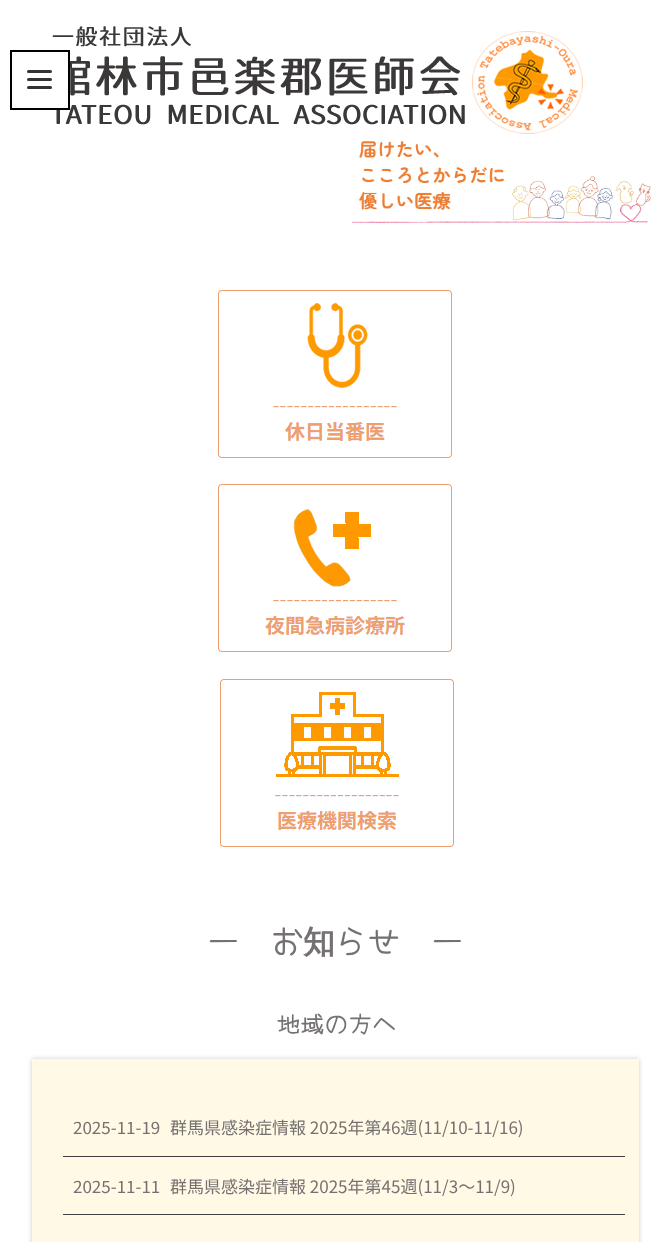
<?xml version="1.0" encoding="UTF-8"?>
<svg xmlns="http://www.w3.org/2000/svg" width="671" height="1242">
    <defs>
        <filter id="blur1" x="-50%" y="-200%" width="200%" height="500%"><feGaussianBlur stdDeviation="2.5"/></filter>
    </defs>
    <rect width="100%" height="100%" fill="#FFFFFF"/>
    <image x="52" y="26" width="531" height="108" href="img_01.png"/>
    <rect x="52" y="56" width="16" height="52" fill="#FFFFFF"/>
    <rect x="11" y="51" width="58" height="58" fill="none" stroke="#000000" stroke-width="2"/>
    <rect x="27" y="78" width="25" height="3" rx="1.5" fill="#333333"/>
    <rect x="27" y="70" width="25" height="3" rx="1.5" fill="#333333"/>
    <rect x="27" y="86" width="25" height="3" rx="1.5" fill="#333333"/>
    <image x="351" y="141" width="300" height="83" href="img_02.png"/>
    <image x="218" y="290" width="234" height="168" href="img_03.png"/>
    <image x="218" y="484" width="234" height="168" href="img_04.png"/>
    <image x="220" y="679" width="234" height="168" href="img_05.png"/>
    <text x="207" y="953" font-family="Yomogi" font-size="32" font-weight="700" fill="#767171">ー</text>
    <text x="271" y="953" font-family="Yomogi" font-size="32" font-weight="700" fill="#767171">お</text>
    <text x="303" y="953" font-family="WenQuanYi Zen Hei" font-size="32" font-weight="700" fill="#767171">知</text>
    <text x="335" y="953" font-family="Yomogi" font-size="32" font-weight="700" fill="#767171">らせ</text>
    <text x="431" y="953" font-family="Yomogi" font-size="32" font-weight="700" fill="#767171">ー</text>
    <text x="276" y="1033" font-family="Yomogi" font-size="24" font-weight="700" fill="#767171">地域の方へ</text>
    <rect x="32" y="1059" width="607" height="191" fill="#000000" fill-opacity="0.2" filter="url(#blur1)"/>
    <rect x="32" y="1059" width="607" height="183" fill="#FFF9E5"/>
    <rect x="63" y="1156" width="562" height="1" fill="#404040"/>
    <text x="73" y="1134" font-family="Noto Sans JP" font-size="17" fill="#767171">2025-11-19</text>
    <text x="170" y="1134" font-family="Noto Sans JP" font-size="17" fill="#767171">群馬県感染症情報 2025年第46週(11/10-11/16)</text>
    <rect x="63" y="1214" width="562" height="1" fill="#404040"/>
    <text x="73" y="1193" font-family="Noto Sans JP" font-size="17" fill="#767171">2025-11-11</text>
    <text x="170" y="1193" font-family="Noto Sans JP" font-size="17" fill="#767171">群馬県感染症情報 2025年第45週(11/3～11/9)</text>
</svg>
